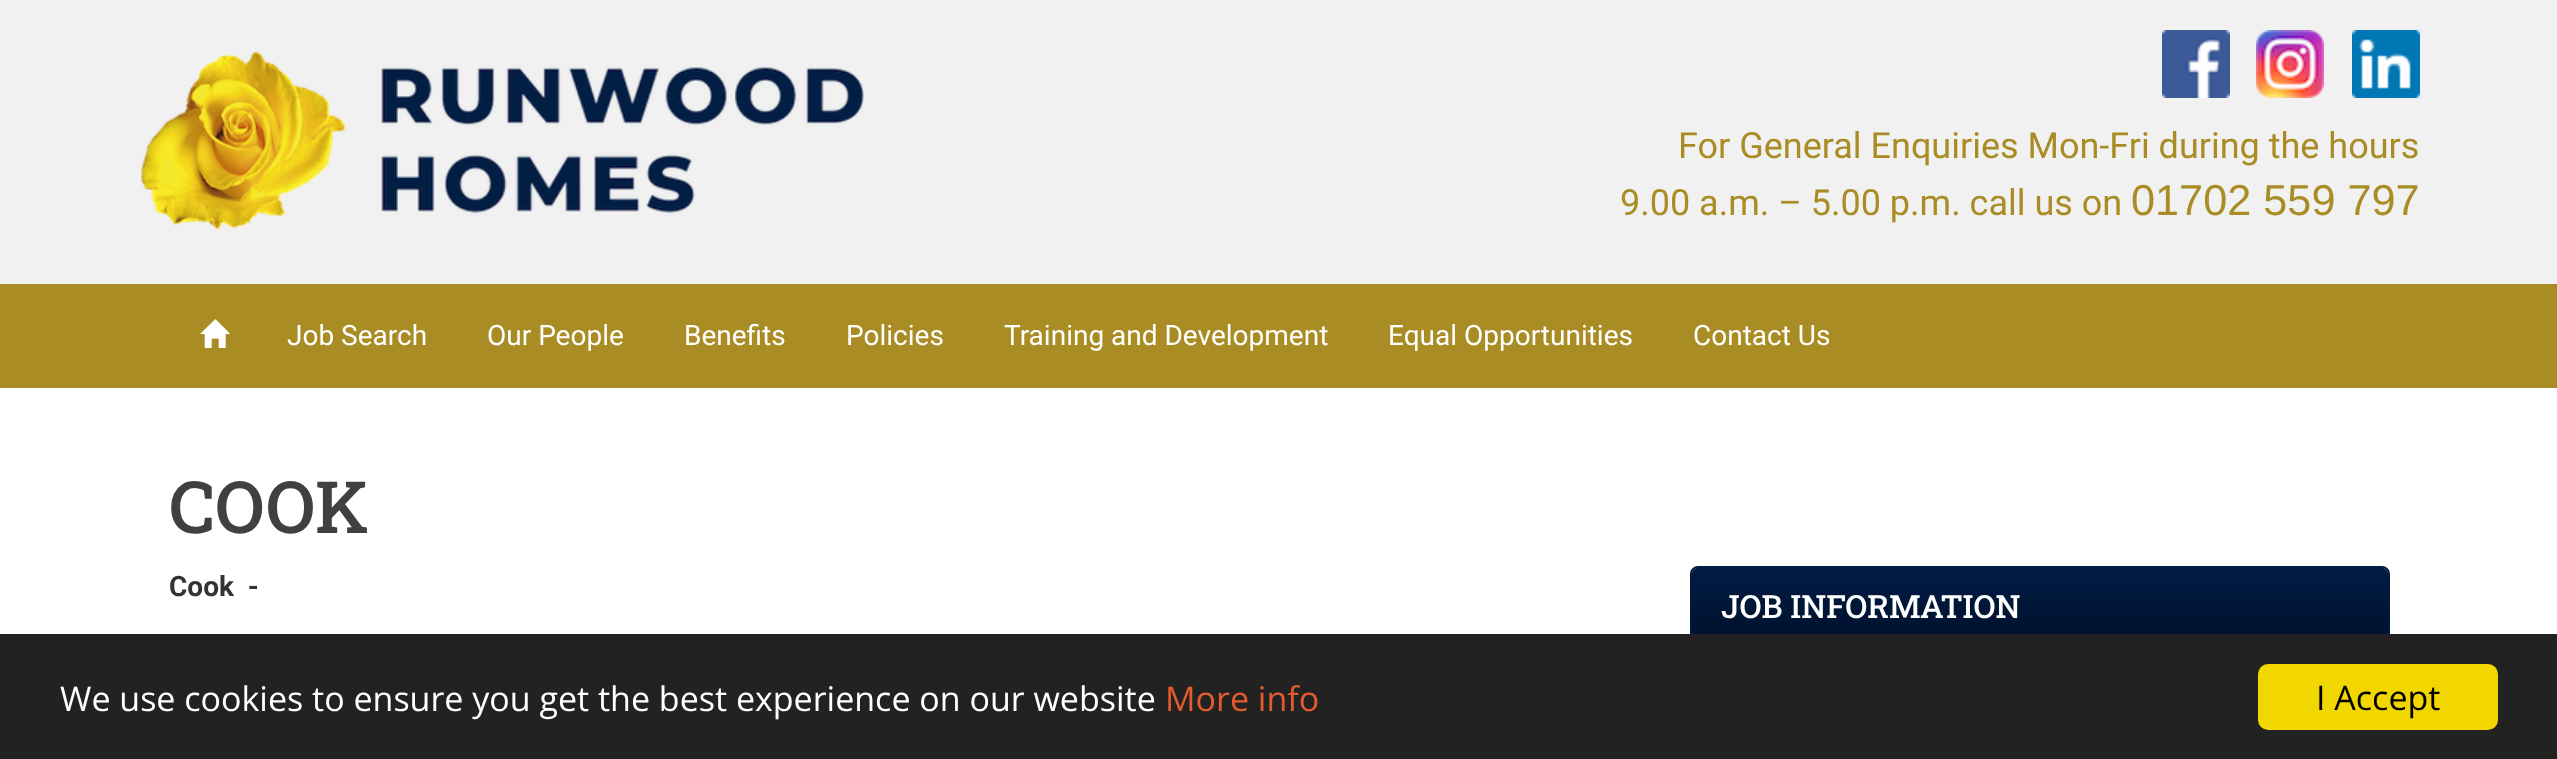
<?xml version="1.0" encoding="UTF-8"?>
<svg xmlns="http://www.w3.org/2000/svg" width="2557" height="759">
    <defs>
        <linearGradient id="g1" gradientUnits="userSpaceOnUse" x1="2040" y1="568" x2="2040" y2="644"><stop offset="0" stop-color="#001C44"/><stop offset="1" stop-color="#00112B"/></linearGradient>
    </defs>
    <rect width="100%" height="100%" fill="#FFFFFF"/>
    <rect x="0" y="0" width="2557" height="284" fill="#F1F1F1"/>
    <image x="141" y="51" width="723" height="179" href="img_01.png"/>
    <image x="2162" y="30" width="68" height="68" href="img_02.png"/>
    <image x="2256" y="30" width="68" height="68" href="img_03.png"/>
    <image x="2352" y="30" width="68" height="68" href="img_04.png"/>
    <text x="1678" y="158" font-family="Roboto" font-size="36" fill="#A98C24">For General Enquiries Mon-Fri during the hours</text>
    <text x="1620" y="215" font-family="Roboto" font-size="36" fill="#A98C24">9.00 a.m. – 5.00 p.m. call us on</text>
    <text x="2131" y="215" font-family="Liberation Sans" font-size="43.25" fill="#A98C24">01702 559 797</text>
    <rect x="0" y="284" width="2557" height="104" fill="#A98C24"/>
    <image x="200" y="319" width="30" height="29" href="img_05.png"/>
    <text x="287" y="345" font-family="Roboto" font-size="28" fill="#FFFFFF">Job Search</text>
    <text x="487" y="345" font-family="Roboto" font-size="28" fill="#FFFFFF">Our People</text>
    <text x="684" y="345" font-family="Roboto" font-size="28" fill="#FFFFFF">Benefits</text>
    <text x="846" y="345" font-family="Roboto" font-size="28" fill="#FFFFFF">Policies</text>
    <text x="1004" y="345" font-family="Roboto" font-size="28" fill="#FFFFFF">Training and Development</text>
    <text x="1388" y="345" font-family="Roboto" font-size="28" fill="#FFFFFF">Equal Opportunities</text>
    <text x="1693" y="345" font-family="Roboto" font-size="28" fill="#FFFFFF">Contact Us</text>
    <text x="169" y="533" font-family="Roboto Slab" font-size="72" font-weight="500" fill="#404040">COOK</text>
    <text x="169" y="596" font-family="Roboto" font-size="28" font-weight="700" fill="#333333" xml:space="preserve">Cook  -</text>
    <rect x="1691" y="567" width="698" height="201" rx="7" fill="none" stroke="#001C44" stroke-width="2"/>
    <path d="M 1698 568 H 2382 C 2385.5 568 2388 570.5 2388 574 V 644 H 1692 V 574 C 1692 570.5 1694.5 568 1698 568 Z" fill="url(#g1)"/>
    <text x="1721" y="618" font-family="Roboto Slab" font-size="32" font-weight="500" fill="#FFFFFF">JOB INFORMATION</text>
    <rect x="0" y="634" width="2557" height="125" fill="#222222"/>
    <text x="60" y="711" font-family="Open Sans" font-size="34" fill="#FFFFFF">We use cookies to ensure you get the best experience on our website</text>
    <text x="1165" y="711" font-family="Open Sans" font-size="34" fill="#E65B2E">More info</text>
    <rect x="2258" y="664" width="240" height="66" rx="10" fill="#F1D600"/>
    <text x="2316" y="710" font-family="Open Sans" font-size="34" fill="#000000">I Accept</text>
</svg>
